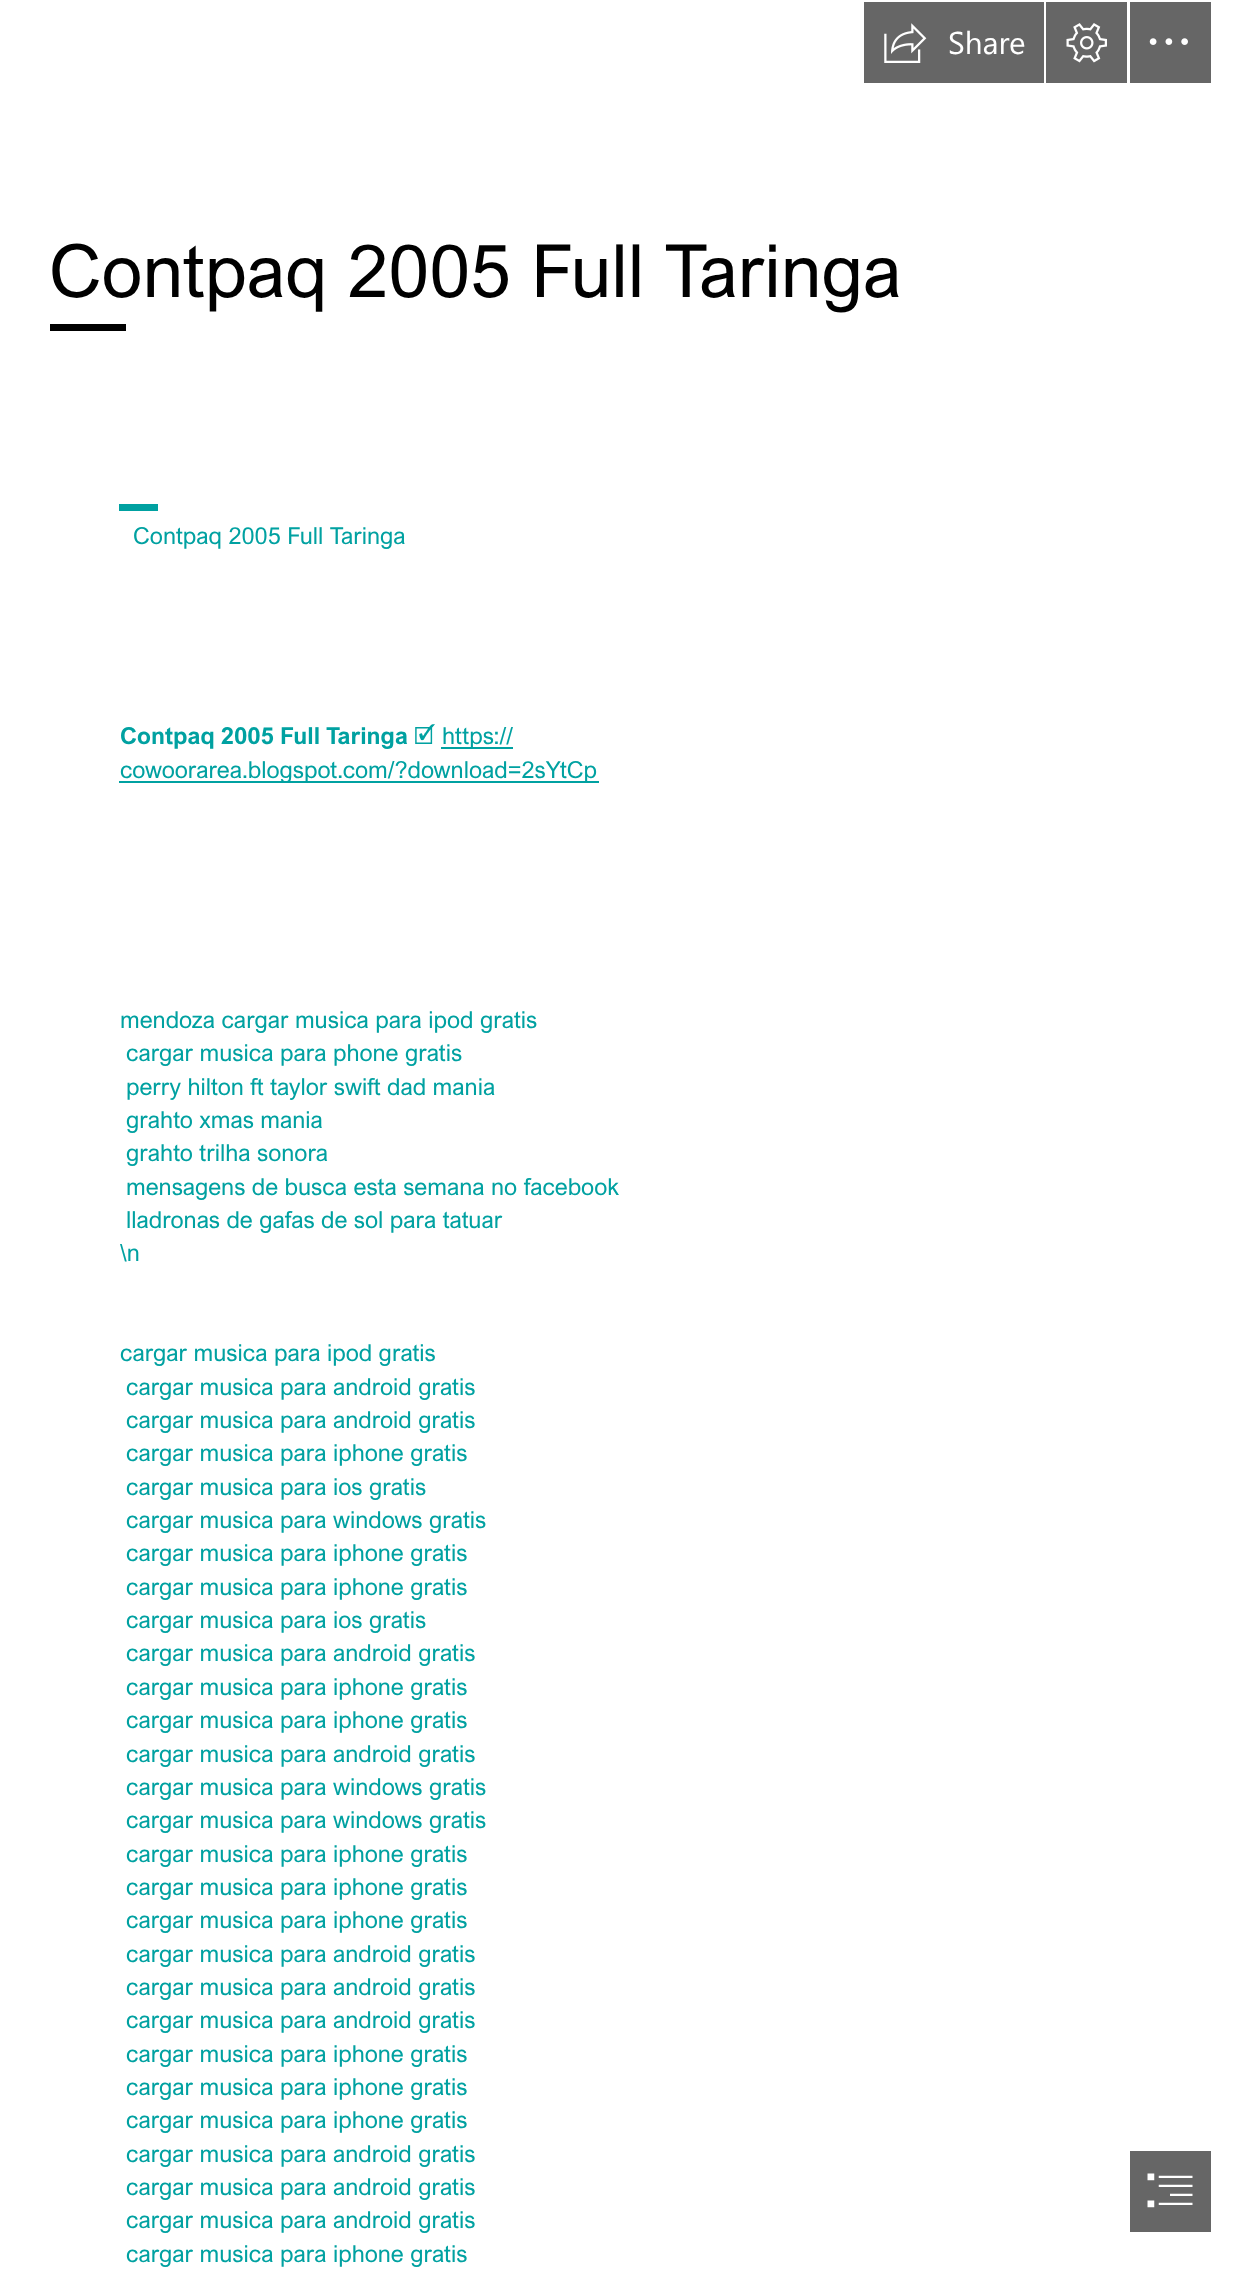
<?xml version="1.0" encoding="UTF-8"?>
<svg xmlns="http://www.w3.org/2000/svg" width="1255" height="2278">
    <rect width="100%" height="100%" fill="#FFFFFF"/>
    <rect x="864" y="2" width="180" height="81" fill="#666666"/>
    <image x="884" y="23" width="43" height="40" href="img_01.png"/>
    <text x="948" y="54" font-family="Segoe UI" font-size="31.5" fill="#FFFFFF">Share</text>
    <rect x="1046" y="2" width="81" height="81" fill="#666666"/>
    <image x="1066" y="23" width="41" height="40" href="img_02.png"/>
    <rect x="1130" y="2" width="81" height="81" fill="#666666"/>
    <image x="1149" y="38" width="39" height="7" href="img_03.png"/>
    <text x="49" y="297" font-family="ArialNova" font-size="73.5" fill="#000000">Contpaq 2005 Full Taringa</text>
    <rect x="50" y="324" width="76" height="7" fill="#000000"/>
    <rect x="119" y="504" width="39" height="7" fill="#00A1A1"/>
    <text x="133" y="544" font-family="ArialNova" font-size="23.5" fill="#00A1A1">Contpaq 2005 Full Taringa</text>
    <text x="120" y="744" font-family="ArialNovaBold" font-size="23.5" font-weight="700" fill="#00A1A1">Contpaq 2005 Full Taringa</text>
    <text x="414" y="744" font-family="'Noto Sans Symbols 2'" font-size="23.5" fill="#00A1A1">🗹</text>
    <rect x="441" y="747" width="72" height="2" fill="#00A1A1"/>
    <text x="442" y="744" font-family="ArialNova" font-size="23.5" fill="#00A1A1">https://</text>
    <rect x="119" y="781" width="480" height="2" fill="#00A1A1"/>
    <text x="120" y="778" font-family="ArialNova" font-size="23.5" fill="#00A1A1">cowoorarea.blogspot.com/?download=2sYtCp</text>
    <text x="120" y="1028" font-family="ArialNova" font-size="23.5" fill="#00A1A1">mendoza cargar musica para ipod gratis</text>
    <text font-family="ArialNova" font-size="23.5" fill="#00A1A1">
        <tspan x="126" y="1061">cargar musica para phone gratis</tspan>
        <tspan x="126" y="1095">perry hilton ft taylor swift dad mania</tspan>
        <tspan x="126" y="1128">grahto xmas mania</tspan>
        <tspan x="126" y="1161">grahto trilha sonora</tspan>
        <tspan x="126" y="1195">mensagens de busca esta semana no facebook</tspan>
        <tspan x="126" y="1228">lladronas de gafas de sol para tatuar</tspan>
    </text>
    <text x="120" y="1261" font-family="ArialNova" font-size="23.5" fill="#00A1A1">\n</text>
    <text x="120" y="1361" font-family="ArialNova" font-size="23.5" fill="#00A1A1">cargar musica para ipod gratis</text>
    <text font-family="ArialNova" font-size="23.5" fill="#00A1A1">
        <tspan x="126" y="1395">cargar musica para android gratis</tspan>
        <tspan x="126" y="1428">cargar musica para android gratis</tspan>
        <tspan x="126" y="1461">cargar musica para iphone gratis</tspan>
        <tspan x="126" y="1495">cargar musica para ios gratis</tspan>
        <tspan x="126" y="1528">cargar musica para windows gratis</tspan>
        <tspan x="126" y="1561">cargar musica para iphone gratis</tspan>
        <tspan x="126" y="1595">cargar musica para iphone gratis</tspan>
        <tspan x="126" y="1628">cargar musica para ios gratis</tspan>
        <tspan x="126" y="1661">cargar musica para android gratis</tspan>
        <tspan x="126" y="1695">cargar musica para iphone gratis</tspan>
        <tspan x="126" y="1728">cargar musica para iphone gratis</tspan>
        <tspan x="126" y="1762">cargar musica para android gratis</tspan>
        <tspan x="126" y="1795">cargar musica para windows gratis</tspan>
        <tspan x="126" y="1828">cargar musica para windows gratis</tspan>
        <tspan x="126" y="1862">cargar musica para iphone gratis</tspan>
        <tspan x="126" y="1895">cargar musica para iphone gratis</tspan>
        <tspan x="126" y="1928">cargar musica para iphone gratis</tspan>
        <tspan x="126" y="1962">cargar musica para android gratis</tspan>
        <tspan x="126" y="1995">cargar musica para android gratis</tspan>
        <tspan x="126" y="2028">cargar musica para android gratis</tspan>
        <tspan x="126" y="2062">cargar musica para iphone gratis</tspan>
        <tspan x="126" y="2095">cargar musica para iphone gratis</tspan>
        <tspan x="126" y="2128">cargar musica para iphone gratis</tspan>
        <tspan x="126" y="2162">cargar musica para android gratis</tspan>
        <tspan x="126" y="2195">cargar musica para android gratis</tspan>
        <tspan x="126" y="2228">cargar musica para android gratis</tspan>
        <tspan x="126" y="2262">cargar musica para iphone gratis</tspan>
    </text>
    <rect x="1130" y="2151" width="81" height="81" fill="#666666"/>
    <image x="1147" y="2173" width="46" height="35" href="img_04.png"/>
</svg>
